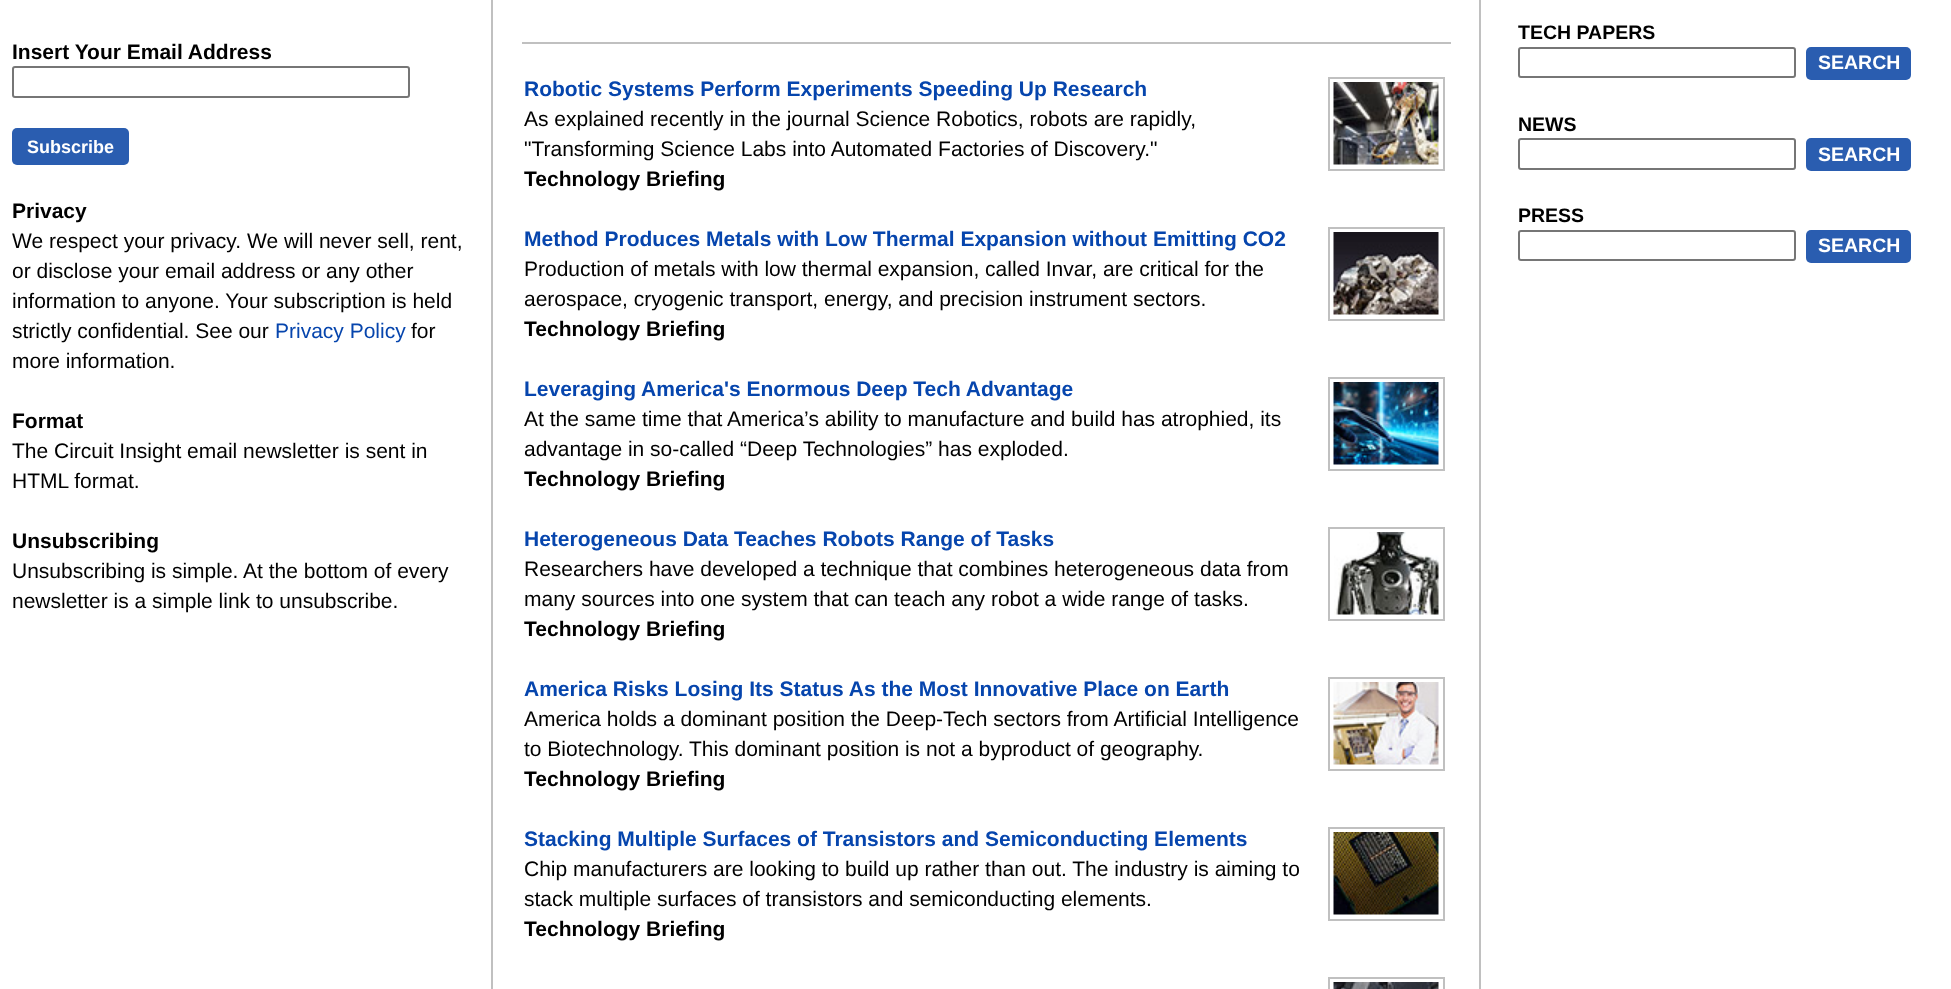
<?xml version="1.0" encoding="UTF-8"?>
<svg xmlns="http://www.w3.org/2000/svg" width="1951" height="989">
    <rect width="100%" height="100%" fill="#FFFFFF"/>
    <text x="12" y="59" font-family="Liberation Sans" font-size="21" font-weight="700" fill="#000000">Insert Your Email Address</text>
    <rect x="13" y="67" width="396" height="30" rx="2" fill="none" stroke="#767676" stroke-width="2"/>
    <rect x="12" y="128" width="117" height="37" rx="5" fill="#2A5DB0"/>
    <text x="27" y="153" font-family="Liberation Sans" font-size="18" font-weight="700" fill="#FFFFFF">Subscribe</text>
    <text x="12" y="218" font-family="Liberation Sans" font-size="21" font-weight="700" fill="#000000">Privacy</text>
    <text font-family="Liberation Sans" font-size="21" fill="#000000">
        <tspan x="12" y="248">We respect your privacy. We will never sell, rent,</tspan>
        <tspan x="12" y="278">or disclose your email address or any other</tspan>
        <tspan x="12" y="308">information to anyone. Your subscription is held</tspan>
        <tspan x="12" y="338">strictly confidential. See our</tspan>
    </text>
    <text x="275" y="338" font-family="Liberation Sans" font-size="21" fill="#0645AD">Privacy Policy</text>
    <text x="411" y="338" font-family="Liberation Sans" font-size="21" fill="#000000">for</text>
    <text x="12" y="368" font-family="Liberation Sans" font-size="21" fill="#000000">more information.</text>
    <text x="12" y="428" font-family="Liberation Sans" font-size="21" font-weight="700" fill="#000000">Format</text>
    <text font-family="Liberation Sans" font-size="21" fill="#000000">
        <tspan x="12" y="458">The Circuit Insight email newsletter is sent in</tspan>
        <tspan x="12" y="488">HTML format.</tspan>
    </text>
    <text x="12" y="548" font-family="Liberation Sans" font-size="21" font-weight="700" fill="#000000">Unsubscribing</text>
    <text font-family="Liberation Sans" font-size="21" fill="#000000">
        <tspan x="12" y="578">Unsubscribing is simple. At the bottom of every</tspan>
        <tspan x="12" y="608">newsletter is a simple link to unsubscribe.</tspan>
    </text>
    <rect x="1479" y="0" width="2" height="989" fill="#C0C0C0"/>
    <rect x="491" y="0" width="2" height="989" fill="#C0C0C0"/>
    <rect x="522" y="42" width="929" height="2" fill="#C0C0C0"/>
    <text x="524" y="96" font-family="Liberation Sans" font-size="21" font-weight="700" fill="#0645AD">Robotic Systems Perform Experiments Speeding Up Research</text>
    <rect x="1329" y="78" width="115" height="92" fill="none" stroke="#C0C0C0" stroke-width="2"/>
    <image x="1333" y="82" width="106" height="83" href="img_01.png"/>
    <text font-family="Liberation Sans" font-size="21" fill="#000000">
        <tspan x="524" y="126">As explained recently in the journal Science Robotics, robots are rapidly,</tspan>
        <tspan x="524" y="156">"Transforming Science Labs into Automated Factories of Discovery."</tspan>
    </text>
    <text x="524" y="186" font-family="Liberation Sans" font-size="21" font-weight="700" fill="#000000">Technology Briefing</text>
    <text x="524" y="246" font-family="Liberation Sans" font-size="21" font-weight="700" fill="#0645AD">Method Produces Metals with Low Thermal Expansion without Emitting CO2</text>
    <rect x="1329" y="228" width="115" height="92" fill="none" stroke="#C0C0C0" stroke-width="2"/>
    <image x="1333" y="232" width="106" height="83" href="img_02.png"/>
    <text font-family="Liberation Sans" font-size="21" fill="#000000">
        <tspan x="524" y="276">Production of metals with low thermal expansion, called Invar, are critical for the</tspan>
        <tspan x="524" y="306">aerospace, cryogenic transport, energy, and precision instrument sectors.</tspan>
    </text>
    <text x="524" y="336" font-family="Liberation Sans" font-size="21" font-weight="700" fill="#000000">Technology Briefing</text>
    <text x="524" y="396" font-family="Liberation Sans" font-size="21" font-weight="700" fill="#0645AD">Leveraging America's Enormous Deep Tech Advantage</text>
    <rect x="1329" y="378" width="115" height="92" fill="none" stroke="#C0C0C0" stroke-width="2"/>
    <image x="1333" y="382" width="106" height="83" href="img_03.png"/>
    <text font-family="Liberation Sans" font-size="21" fill="#000000">
        <tspan x="524" y="426">At the same time that America’s ability to manufacture and build has atrophied, its</tspan>
        <tspan x="524" y="456">advantage in so-called “Deep Technologies” has exploded.</tspan>
    </text>
    <text x="524" y="486" font-family="Liberation Sans" font-size="21" font-weight="700" fill="#000000">Technology Briefing</text>
    <text x="524" y="546" font-family="Liberation Sans" font-size="21" font-weight="700" fill="#0645AD">Heterogeneous Data Teaches Robots Range of Tasks</text>
    <rect x="1329" y="528" width="115" height="92" fill="none" stroke="#C0C0C0" stroke-width="2"/>
    <image x="1334" y="532" width="105" height="83" href="img_04.png"/>
    <text font-family="Liberation Sans" font-size="21" fill="#000000">
        <tspan x="524" y="576">Researchers have developed a technique that combines heterogeneous data from</tspan>
        <tspan x="524" y="606">many sources into one system that can teach any robot a wide range of tasks.</tspan>
    </text>
    <text x="524" y="636" font-family="Liberation Sans" font-size="21" font-weight="700" fill="#000000">Technology Briefing</text>
    <text x="524" y="696" font-family="Liberation Sans" font-size="21" font-weight="700" fill="#0645AD">America Risks Losing Its Status As the Most Innovative Place on Earth</text>
    <rect x="1329" y="678" width="115" height="92" fill="none" stroke="#C0C0C0" stroke-width="2"/>
    <image x="1333" y="682" width="106" height="83" href="img_05.png"/>
    <text font-family="Liberation Sans" font-size="21" fill="#000000">
        <tspan x="524" y="726">America holds a dominant position the Deep-Tech sectors from Artificial Intelligence</tspan>
        <tspan x="524" y="756">to Biotechnology. This dominant position is not a byproduct of geography.</tspan>
    </text>
    <text x="524" y="786" font-family="Liberation Sans" font-size="21" font-weight="700" fill="#000000">Technology Briefing</text>
    <text x="524" y="846" font-family="Liberation Sans" font-size="21" font-weight="700" fill="#0645AD">Stacking Multiple Surfaces of Transistors and Semiconducting Elements</text>
    <rect x="1329" y="828" width="115" height="92" fill="none" stroke="#C0C0C0" stroke-width="2"/>
    <image x="1333" y="832" width="106" height="83" href="img_06.png"/>
    <text font-family="Liberation Sans" font-size="21" fill="#000000">
        <tspan x="524" y="876">Chip manufacturers are looking to build up rather than out. The industry is aiming to</tspan>
        <tspan x="524" y="906">stack multiple surfaces of transistors and semiconducting elements.</tspan>
    </text>
    <text x="524" y="936" font-family="Liberation Sans" font-size="21" font-weight="700" fill="#000000">Technology Briefing</text>
    <rect x="1329" y="978" width="115" height="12" fill="none" stroke="#C0C0C0" stroke-width="2"/>
    <image x="1333" y="982" width="106" height="7" href="img_07.png"/>
    <text x="1518" y="39" font-family="Liberation Sans" font-size="19.5" font-weight="700" fill="#000000">TECH PAPERS</text>
    <rect x="1519" y="48" width="276" height="29" rx="2" fill="none" stroke="#767676" stroke-width="2"/>
    <rect x="1806" y="47" width="105" height="33" rx="5" fill="#2A5DB0"/>
    <text x="1818" y="69" font-family="Liberation Sans" font-size="19.5" font-weight="700" fill="#FFFFFF">SEARCH</text>
    <text x="1518" y="131" font-family="Liberation Sans" font-size="19.5" font-weight="700" fill="#000000">NEWS</text>
    <rect x="1519" y="139" width="276" height="30" rx="2" fill="none" stroke="#767676" stroke-width="2"/>
    <rect x="1806" y="138" width="105" height="33" rx="5" fill="#2A5DB0"/>
    <text x="1818" y="161" font-family="Liberation Sans" font-size="19.5" font-weight="700" fill="#FFFFFF">SEARCH</text>
    <text x="1518" y="222" font-family="Liberation Sans" font-size="19.5" font-weight="700" fill="#000000">PRESS</text>
    <rect x="1519" y="231" width="276" height="29" rx="2" fill="none" stroke="#767676" stroke-width="2"/>
    <rect x="1806" y="230" width="105" height="33" rx="5" fill="#2A5DB0"/>
    <text x="1818" y="252" font-family="Liberation Sans" font-size="19.5" font-weight="700" fill="#FFFFFF">SEARCH</text>
</svg>
